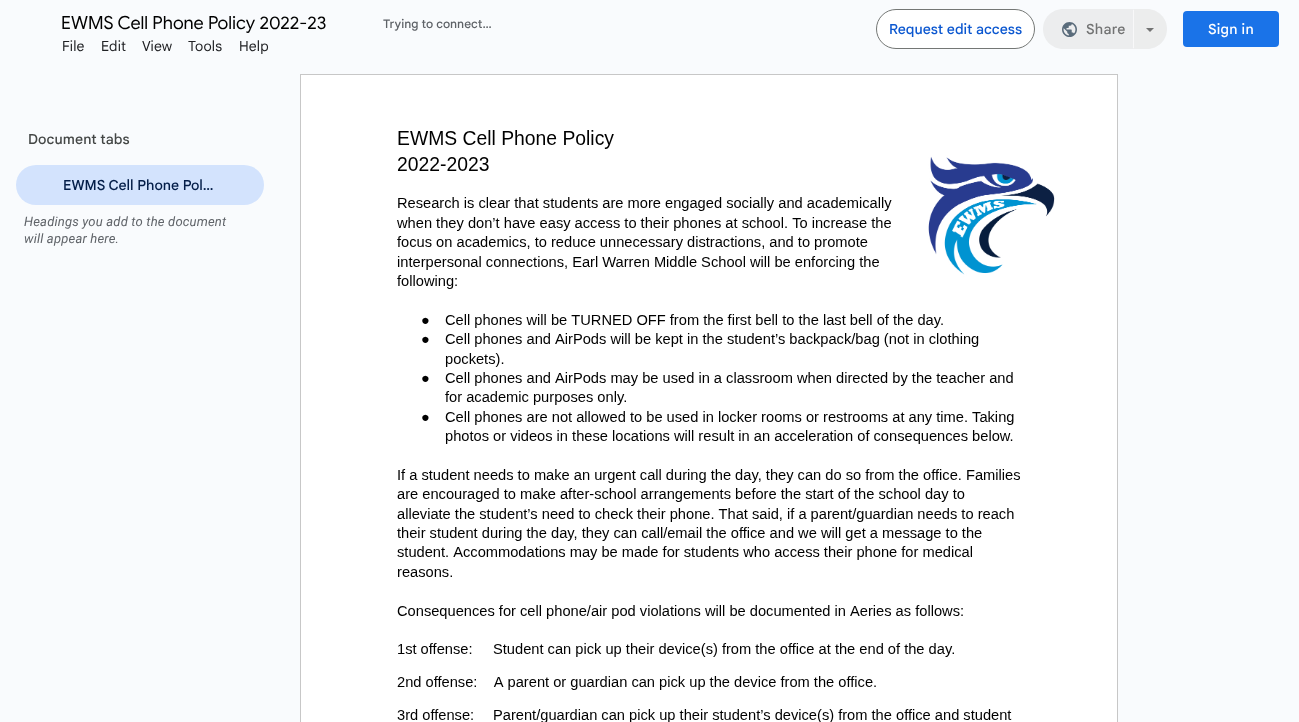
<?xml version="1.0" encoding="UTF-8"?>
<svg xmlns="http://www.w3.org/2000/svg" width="1299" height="722">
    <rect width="100%" height="100%" fill="#F9FBFD"/>
    <text x="61" y="29" font-family="'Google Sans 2'" font-size="18" fill="#000000">EWMS Cell Phone Policy 2022-23</text>
    <text x="383" y="28" font-family="Google Sans" font-size="12" font-weight="500" fill="#5F6368">Trying to connect…</text>
    <rect x="876.5" y="9.5" width="158" height="39" rx="19.5" fill="#FFFFFF" stroke="#747775"/>
    <text x="889" y="34" font-family="Google Sans" font-size="14" font-weight="500" fill="#0B57D0">Request edit access</text>
    <path d="M 1063 9 H 1134 V 49 H 1063 C 1052 49 1043 40 1043 29 C 1043 18 1052 9 1063 9 Z" fill="#ECEDEE"/>
    <image x="1062" y="22" width="15" height="15" href="img_01.png"/>
    <text x="1086" y="34" font-family="Google Sans" font-size="14" font-weight="500" letter-spacing="0.25" fill="#727373">Share</text>
    <path d="M 1133 9 H 1147 C 1158 9 1167 18 1167 29 C 1167 40 1158 49 1147 49 H 1133 Z" fill="#E4E4E4" fill-opacity="0.62"/>
    <path d="M 1134 10 L 1133 9 V 49 L 1134 48 Z" fill="#F8F8F9"/>
    <path d="M 1146 28 H 1154 L 1150 32 Z" fill="#727373"/>
    <rect x="1183" y="11" width="96" height="36" rx="4" fill="#1A73E8"/>
    <text x="1208" y="34" font-family="Google Sans" font-size="14" font-weight="500" letter-spacing="0.25" fill="#FFFFFF">Sign in</text>
    <text x="62" y="51" font-family="Google Sans" font-size="14" letter-spacing="0.2" fill="#202124">File</text>
    <text x="101" y="51" font-family="Google Sans" font-size="14" letter-spacing="0.2" fill="#202124">Edit</text>
    <text x="142" y="51" font-family="Google Sans" font-size="14" letter-spacing="0.2" fill="#202124">View</text>
    <text x="188" y="51" font-family="Google Sans" font-size="14" letter-spacing="0.2" fill="#202124">Tools</text>
    <text x="239" y="51" font-family="Google Sans" font-size="14" letter-spacing="0.2" fill="#202124">Help</text>
    <text x="28" y="144" font-family="Google Sans" font-size="14" font-weight="500" letter-spacing="0.1" fill="#444746">Document tabs</text>
    <rect x="16" y="165" width="248" height="40" rx="20" fill="#D3E3FD"/>
    <text x="63" y="190" font-family="Google Sans" font-size="14" font-weight="500" fill="#041E49">EWMS Cell Phone Pol…</text>
    <text font-family="Roboto" font-size="13" font-style="italic" letter-spacing="0.2" fill="#5F6368">
        <tspan x="24" y="226">Headings you add to the document</tspan>
        <tspan x="24" y="243">will appear here.</tspan>
    </text>
    <rect x="300.5" y="74.5" width="817" height="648" fill="none" stroke="#C7C7C7"/>
    <image x="301" y="75" width="816" height="647" href="img_02.png"/>
</svg>
